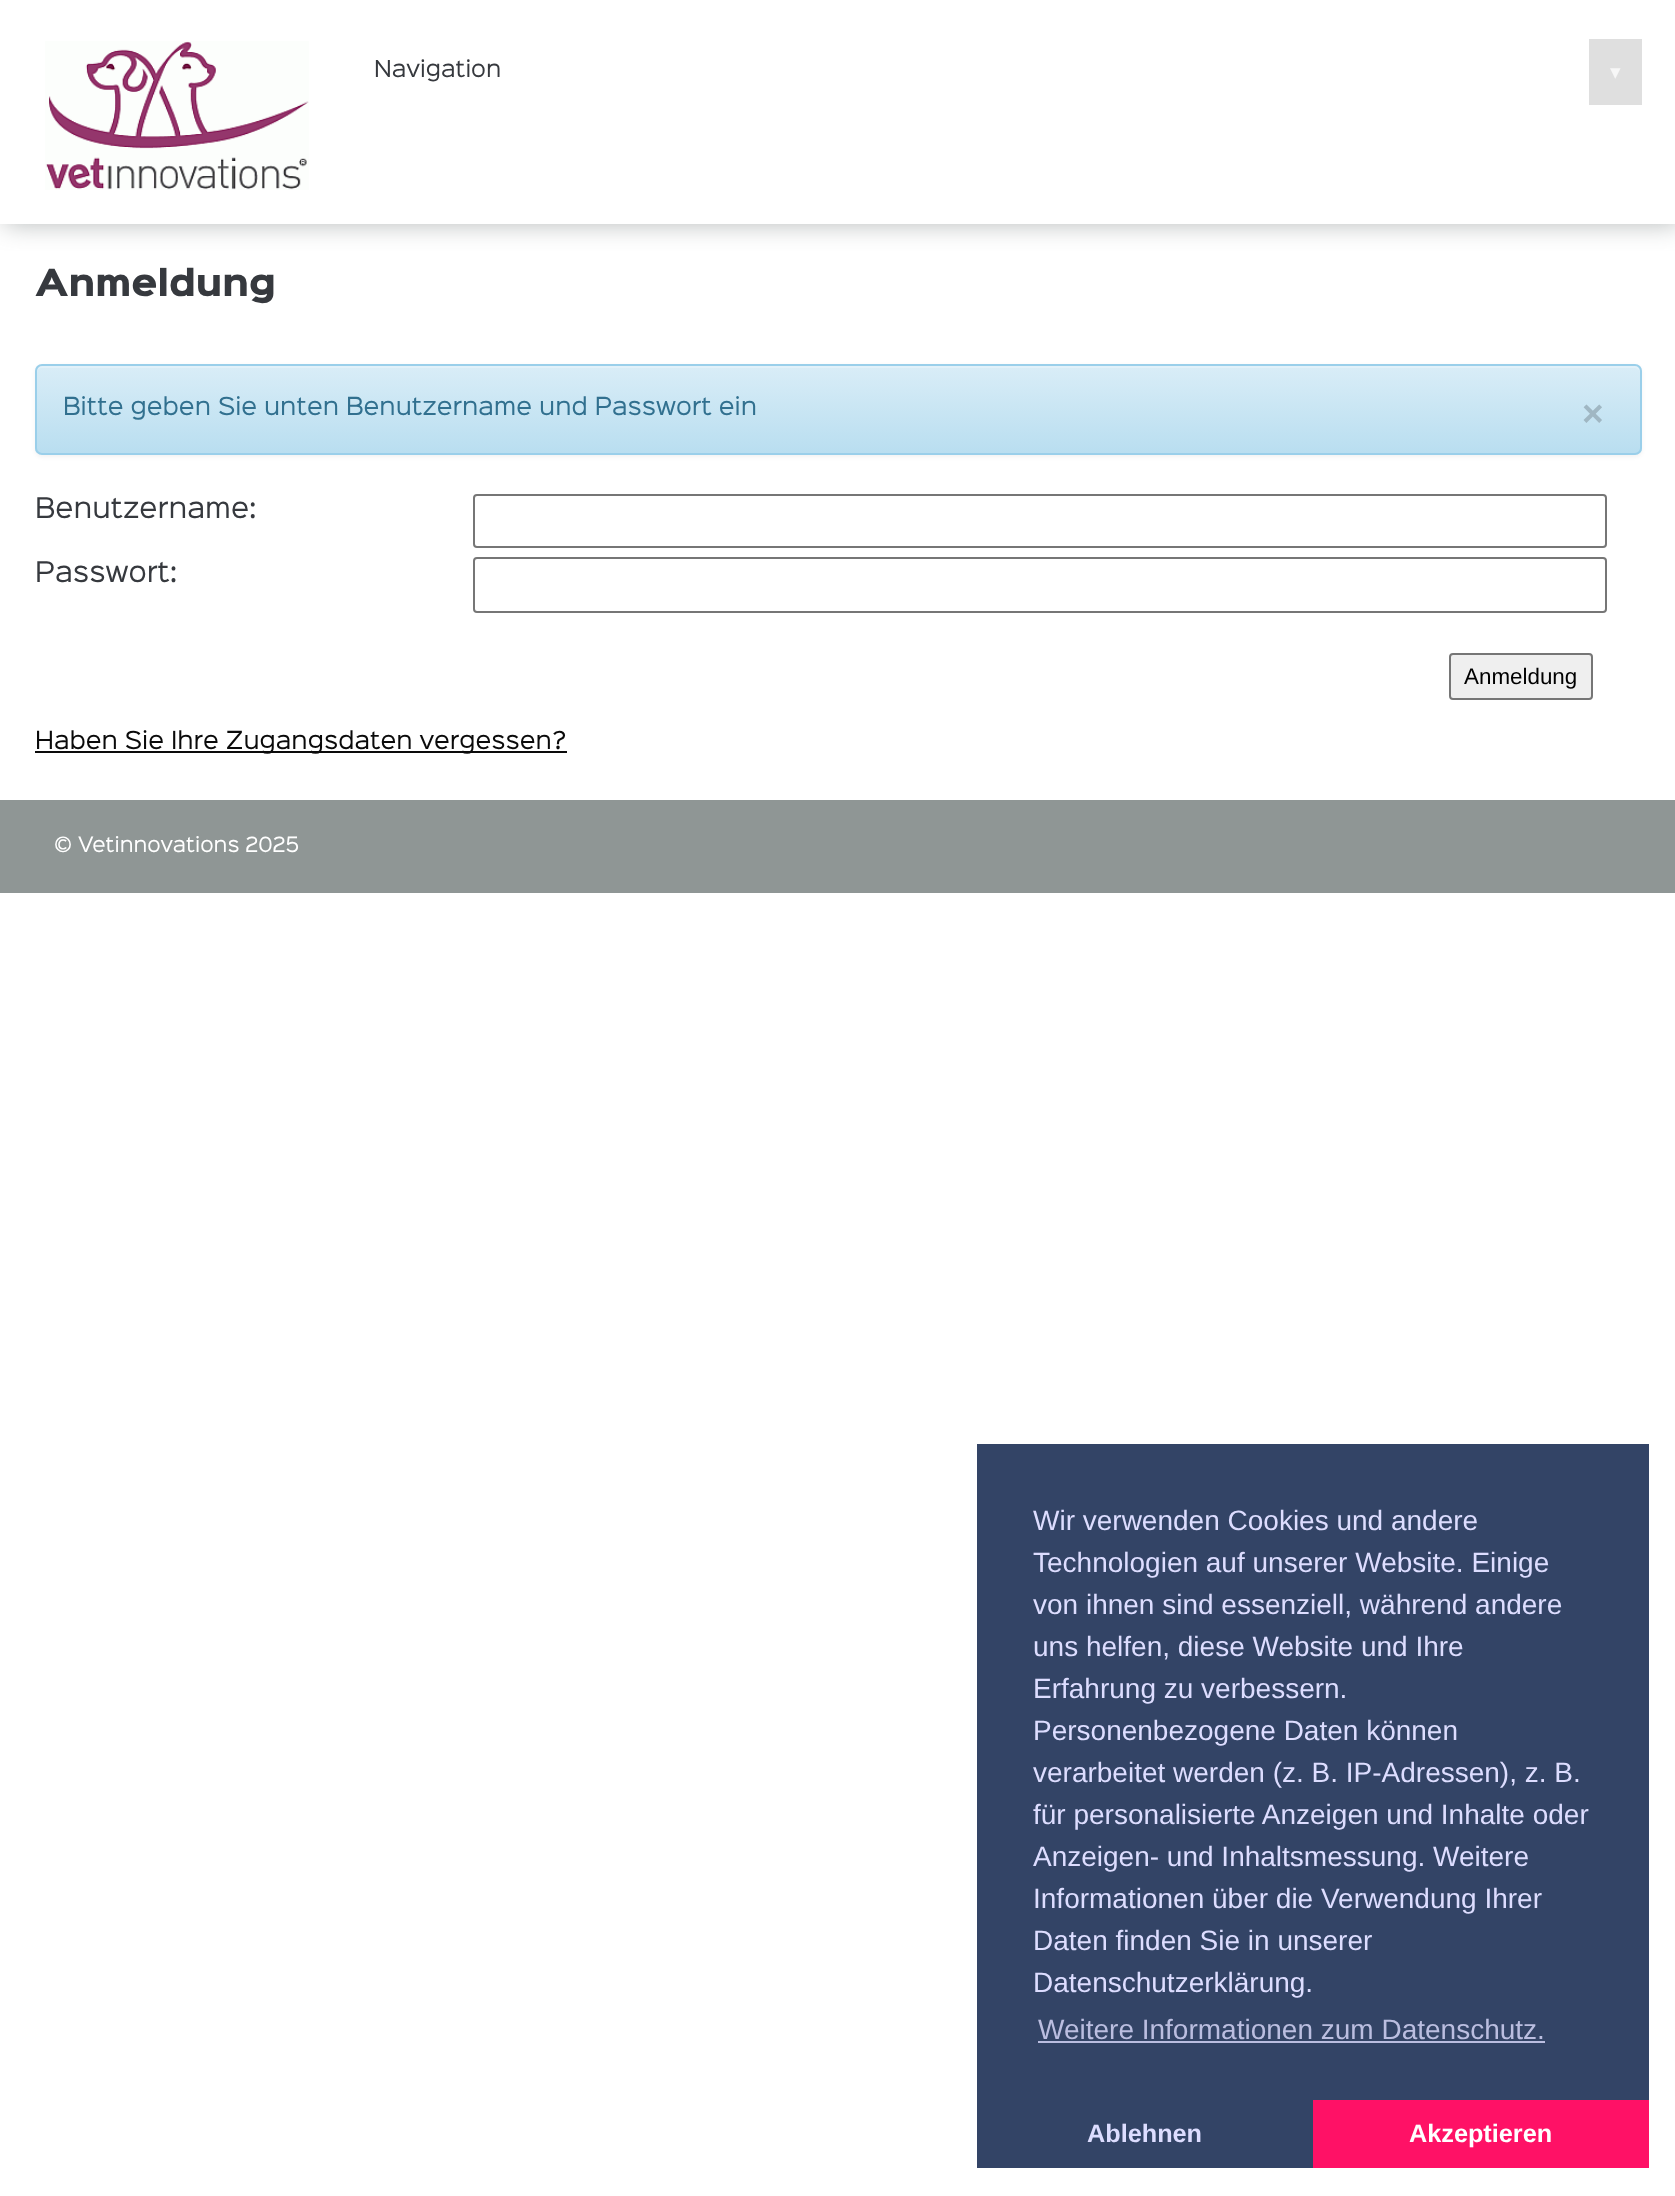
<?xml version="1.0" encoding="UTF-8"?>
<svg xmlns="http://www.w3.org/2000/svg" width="1675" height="2196">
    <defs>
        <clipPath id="clip1"><rect x="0" y="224" width="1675" height="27"/></clipPath>
        <filter id="blur1" x="-50%" y="-200%" width="200%" height="500%"><feGaussianBlur stdDeviation="13"/></filter>
        <filter id="blur2" x="-50%" y="-200%" width="200%" height="500%"><feGaussianBlur stdDeviation="2"/></filter>
        <clipPath id="clip2"><rect x="35" y="364" width="1607" height="91" rx="7"/></clipPath>
        <linearGradient id="g1" gradientUnits="userSpaceOnUse" x1="838" y1="366" x2="838" y2="453"><stop offset="0" stop-color="#D9EDF7"/><stop offset="1" stop-color="#B9DEF0"/></linearGradient>
    </defs>
    <rect width="100%" height="100%" fill="#FFFFFF"/>
    <g clip-path="url(#clip1)">
        <rect x="4" y="0" width="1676" height="224" fill="#B5B9B9" filter="url(#blur1)"/>
    </g>
    <image x="45" y="41" width="264" height="149" href="img_01.png"/>
    <text x="374" y="77" font-family="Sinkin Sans" font-size="21" fill="#36393E">Navigation</text>
    <rect x="1589" y="39" width="53" height="66" fill="#DFDFDF"/>
    <text x="1610" y="79" font-family="DejaVu Sans" font-size="21" fill="#F7F7F7">▾</text>
    <text x="35" y="296" font-family="Sinkin Sans" font-size="33.5" font-weight="900" fill="#36393E">Anmeldung</text>
    <rect x="35" y="366" width="1607" height="91" rx="7" fill="#000000" fill-opacity="0.05" filter="url(#blur2)"/>
    <g clip-path="url(#clip2)">
        <rect x="35" y="366" width="1607" height="87" fill="url(#g1)"/>
    </g>
    <path d="M 42 368 H 1634 C 1637 368 1640 370 1640 373 C 1640 370 1639 366 1635 366 H 42 C 38 366 37 370 37 373 C 37 370 39 368 42 368 Z" fill="#E2F1F9"/>
    <rect x="36" y="365" width="1605" height="89" rx="6" fill="none" stroke="#9ACFEA" stroke-width="2"/>
    <text x="63" y="415" font-family="Sinkin Sans" font-size="22.4" fill="#31708F">Bitte geben Sie unten Benutzername und Passwort ein</text>
    <text x="1582" y="426" font-family="Liberation Sans" font-size="37" font-weight="700" fill="#A0B7C3">×</text>
    <text x="35" y="518" font-family="Sinkin Sans" font-size="25.75" fill="#36393E">Benutzername:</text>
    <rect x="474" y="495" width="1132" height="52" rx="3" fill="none" stroke="#767676" stroke-width="2"/>
    <text x="35" y="582" font-family="Sinkin Sans" font-size="25.75" fill="#36393E">Passwort:</text>
    <rect x="474" y="558" width="1132" height="54" rx="3" fill="none" stroke="#767676" stroke-width="2"/>
    <rect x="1450" y="654" width="142" height="45" rx="3" fill="#EFEFEF" stroke="#767676" stroke-width="2"/>
    <text x="1464" y="684" font-family="Liberation Sans" font-size="22.4" fill="#000000">Anmeldung</text>
    <rect x="35" y="751" width="532" height="2" fill="#0A0A0A"/>
    <text x="35" y="749" font-family="Sinkin Sans" font-size="22.4" fill="#0A0A0A">Haben Sie Ihre Zugangsdaten vergessen?</text>
    <rect x="0" y="800" width="1675" height="93" fill="#8F9695"/>
    <text x="54" y="852" font-family="Sinkin Sans" font-size="19" fill="#FFFFFF">© Vetinnovations 2025</text>
    <rect x="977" y="1444" width="672" height="724" fill="#334466"/>
    <text font-family="Liberation Sans" font-size="28" fill="#DDDDFF">
        <tspan x="1033" y="1530">Wir verwenden Cookies und andere</tspan>
        <tspan x="1033" y="1572">Technologien auf unserer Website. Einige</tspan>
        <tspan x="1033" y="1614">von ihnen sind essenziell, während andere</tspan>
        <tspan x="1033" y="1656">uns helfen, diese Website und Ihre</tspan>
        <tspan x="1033" y="1698">Erfahrung zu verbessern.</tspan>
        <tspan x="1033" y="1740">Personenbezogene Daten können</tspan>
        <tspan x="1033" y="1782">verarbeitet werden (z. B. IP-Adressen), z. B.</tspan>
        <tspan x="1033" y="1824">für personalisierte Anzeigen und Inhalte oder</tspan>
        <tspan x="1033" y="1866">Anzeigen- und Inhaltsmessung. Weitere</tspan>
        <tspan x="1033" y="1908">Informationen über die Verwendung Ihrer</tspan>
        <tspan x="1033" y="1950">Daten finden Sie in unserer</tspan>
        <tspan x="1033" y="1992">Datenschutzerklärung.</tspan>
    </text>
    <text x="1038" y="2039" font-family="Liberation Sans" font-size="28" fill="#BBBEE0">Weitere Informationen zum Datenschutz.</text>
    <rect x="1038" y="2041" width="507" height="2" fill="#BBBEE0"/>
    <text x="1087" y="2142" font-family="Liberation Sans" font-size="25.25" font-weight="700" fill="#DDDDFF">Ablehnen</text>
    <rect x="1313" y="2100" width="336" height="68" fill="#FF1166"/>
    <text x="1409" y="2142" font-family="Liberation Sans" font-size="25.25" font-weight="700" fill="#FFFFFF">Akzeptieren</text>
</svg>
